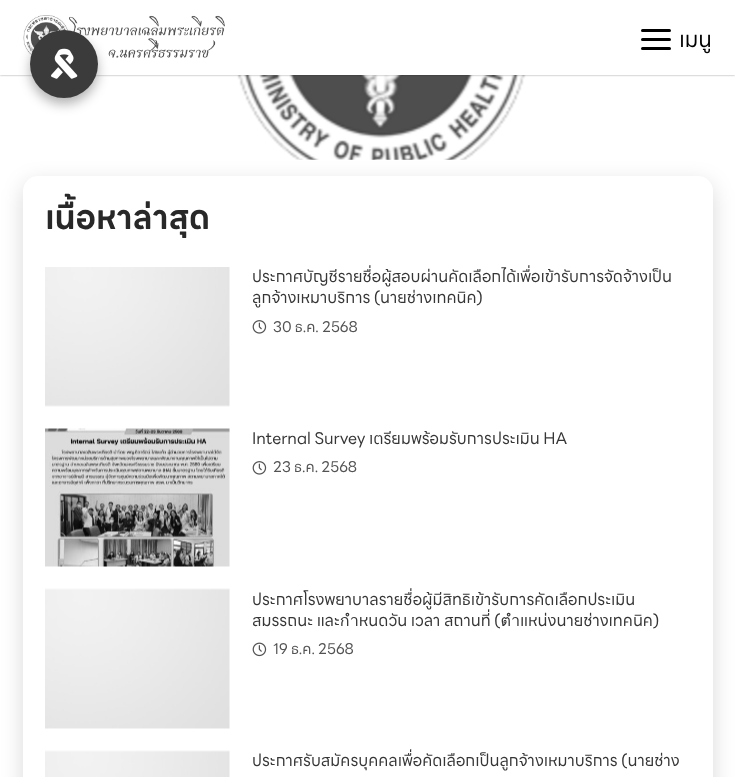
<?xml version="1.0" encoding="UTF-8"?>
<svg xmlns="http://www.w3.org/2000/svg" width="735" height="777">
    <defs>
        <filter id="blur1" x="-50%" y="-200%" width="200%" height="500%"><feGaussianBlur stdDeviation="11"/></filter>
        <filter id="blur2" x="-50%" y="-200%" width="200%" height="500%"><feGaussianBlur stdDeviation="1"/></filter>
        <filter id="blur3" x="-50%" y="-200%" width="200%" height="500%"><feGaussianBlur stdDeviation="6"/></filter>
    </defs>
    <rect width="100%" height="100%" fill="#FFFFFF"/>
    <rect x="23" y="183" width="690" height="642" rx="15" fill="#000000" fill-opacity="0.15" filter="url(#blur1)"/>
    <image x="237" y="75" width="289" height="85" href="img_03.png"/>
    <rect x="0" y="0" width="735" height="75" fill="#000000" fill-opacity="0.4" filter="url(#blur2)"/>
    <rect x="0" y="0" width="735" height="75" fill="#FFFFFF"/>
    <image x="23" y="15" width="202" height="43" href="img_02.png"/>
    <rect x="30" y="36" width="68" height="68" rx="34" fill="#000000" fill-opacity="0.3" filter="url(#blur3)"/>
    <circle cx="64" cy="64" r="34" fill="#3B3B3B"/>
    <image x="51" y="48" width="27" height="31" href="img_01.png"/>
    <rect x="641" y="29" width="30" height="3" rx="1.5" fill="#000000"/>
    <rect x="641" y="38" width="30" height="3" rx="1.5" fill="#000000"/>
    <rect x="641" y="47" width="30" height="3" rx="1.5" fill="#000000"/>
    <text x="679" y="47" font-family="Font" font-size="22" fill="#000000">เมนู</text>
    <rect x="23" y="176" width="690" height="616" rx="15" fill="#FFFFFF"/>
    <text x="45" y="229" font-family="Font" font-size="33" font-weight="700" fill="#282828">เนื้อหาล่าสุด</text>
    <image x="45" y="267" width="185" height="140" href="img_04.png"/>
    <text font-family="Font" font-size="16.2" fill="#363636">
        <tspan x="252" y="282">ประกาศบัญชีรายชื่อผู้สอบผ่านคัดเลือกได้เพื่อเข้ารับการจัดจ้างเป็น</tspan>
        <tspan x="252" y="303">ลูกจ้างเหมาบริการ (นายช่างเทคนิค)</tspan>
    </text>
    <image x="252" y="320" width="15" height="14" href="img_05.png"/>
    <text x="273" y="332" font-family="Font" font-size="14.75" fill="#535353">30 ธ.ค. 2568</text>
    <image x="45" y="428" width="185" height="139" href="img_06.png"/>
    <text x="252" y="444" font-family="Font" font-size="16.2" fill="#363636">Internal Survey เตรียมพร้อมรับการประเมิน HA</text>
    <image x="252" y="461" width="15" height="14" href="img_05.png"/>
    <text x="273" y="472" font-family="Font" font-size="14.75" fill="#535353">23 ธ.ค. 2568</text>
    <image x="45" y="588" width="185" height="141" href="img_07.png"/>
    <text font-family="Font" font-size="16.2" fill="#363636">
        <tspan x="252" y="605">ประกาศโรงพยาบาลรายชื่อผู้มีสิทธิเข้ารับการคัดเลือกประเมิน</tspan>
        <tspan x="252" y="626">สมรรถนะ และกำหนดวัน เวลา สถานที่ (ตำแหน่งนายช่างเทคนิค)</tspan>
    </text>
    <image x="252" y="642" width="15" height="15" href="img_08.png"/>
    <text x="273" y="654" font-family="Font" font-size="14.75" fill="#535353">19 ธ.ค. 2568</text>
    <image x="45" y="750" width="185" height="27" href="img_09.png"/>
    <text x="252" y="766" font-family="Font" font-size="16.2" fill="#363636">ประกาศรับสมัครบุคคลเพื่อคัดเลือกเป็นลูกจ้างเหมาบริการ (นายช่าง</text>
</svg>
